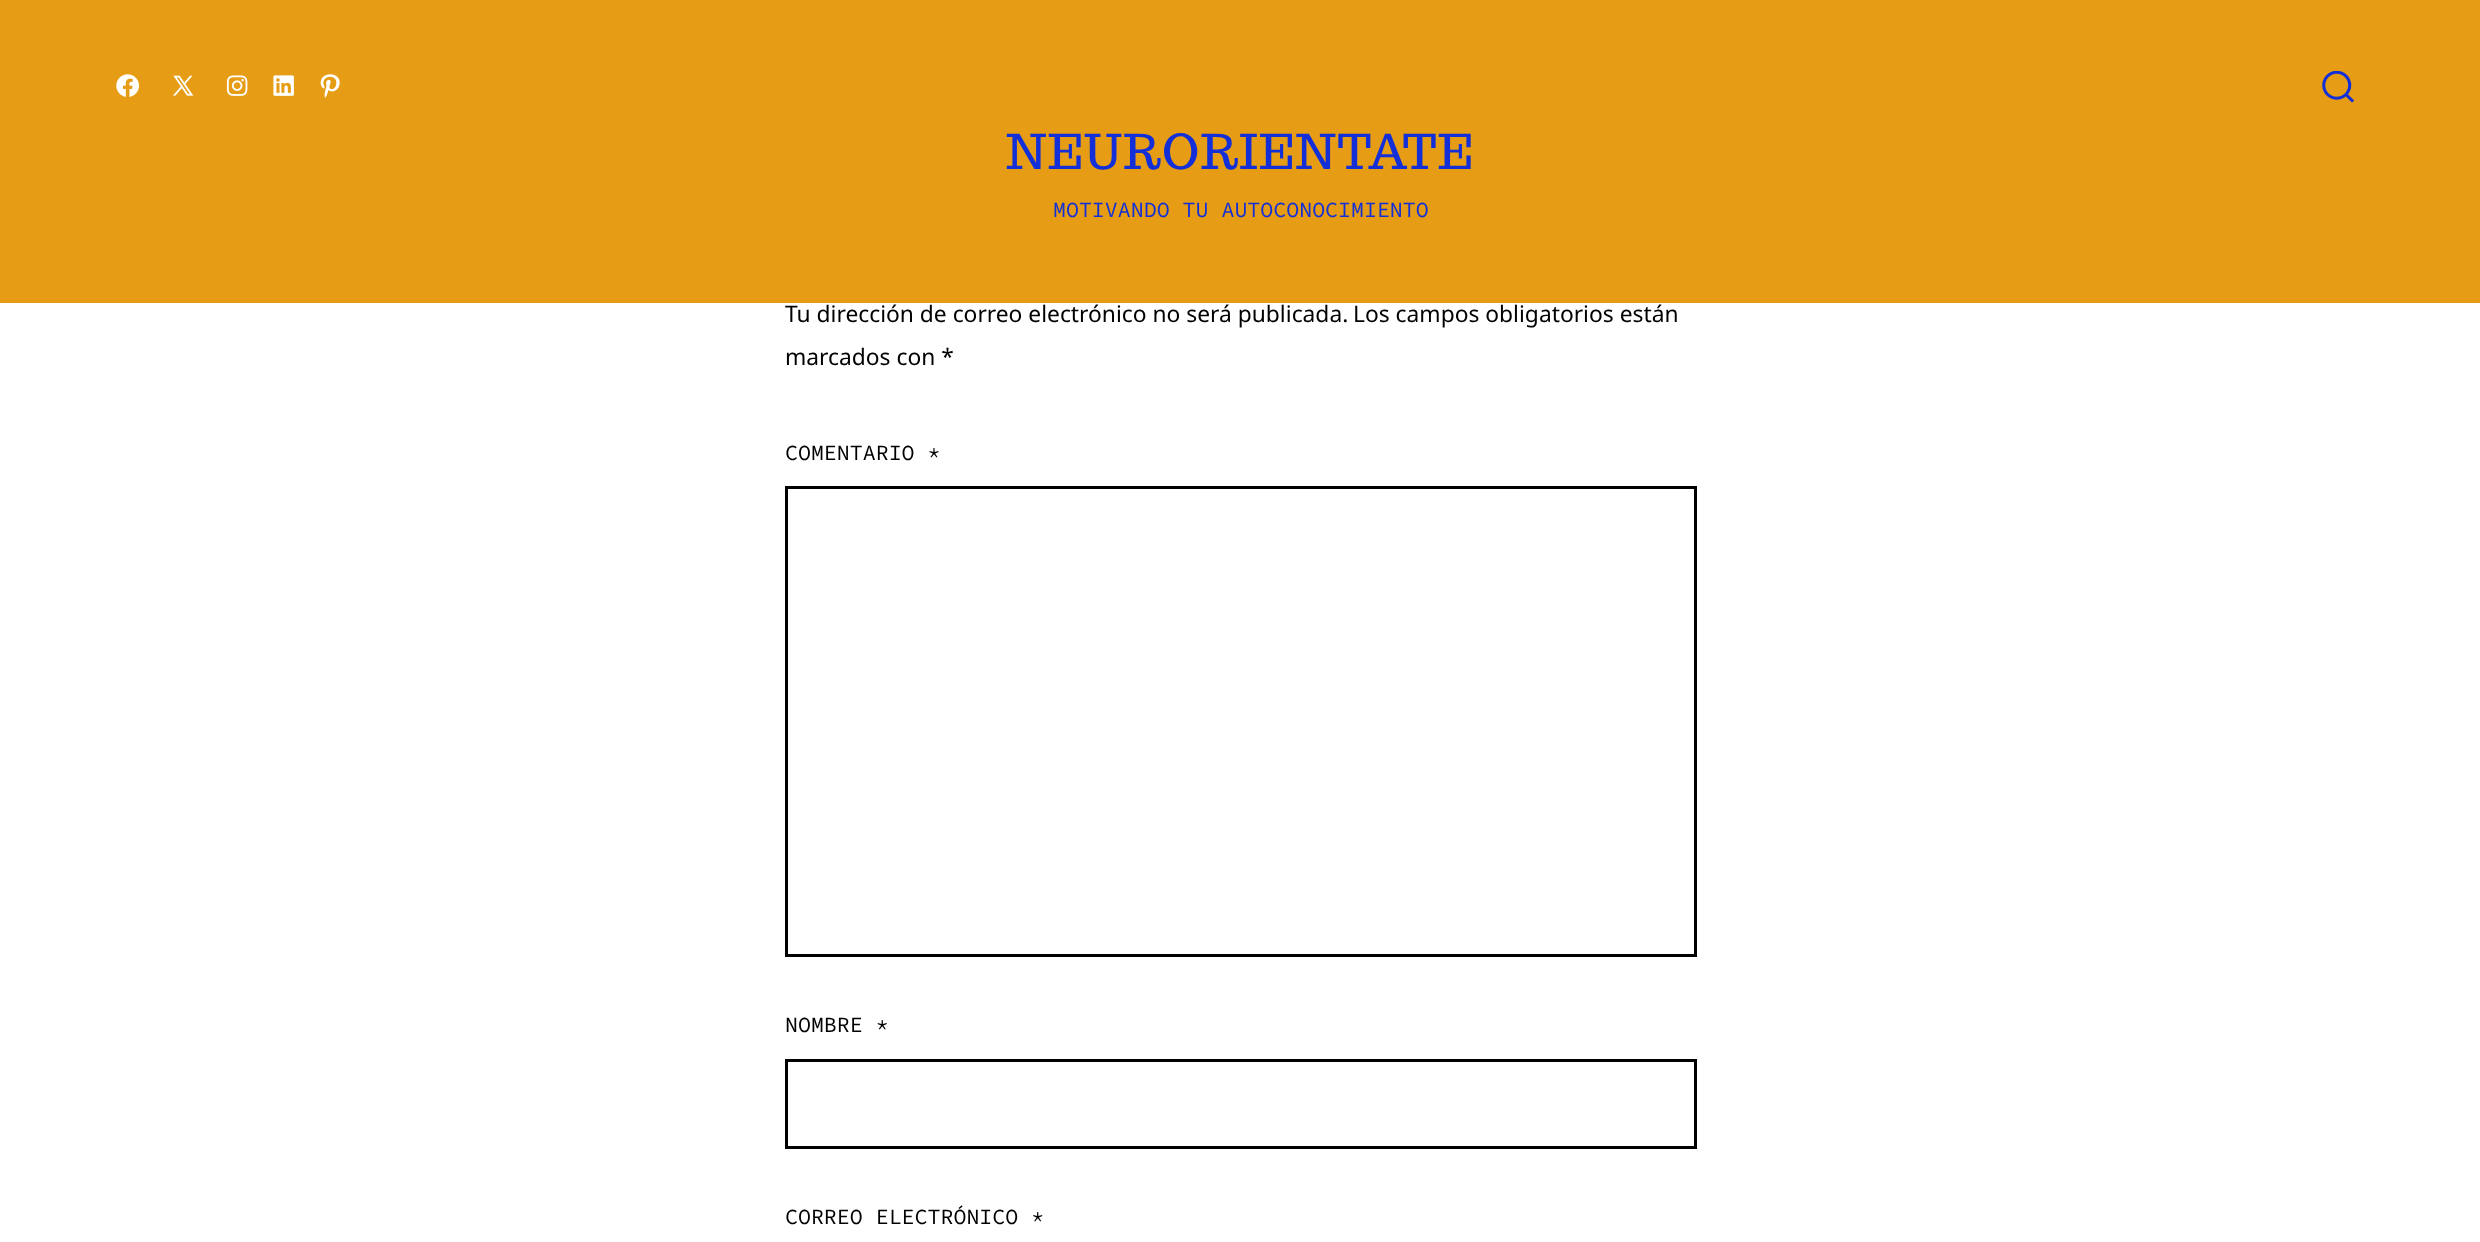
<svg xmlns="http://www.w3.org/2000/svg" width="2480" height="1242">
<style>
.a{font:48px Trocchi;letter-spacing:1.6px;fill:#1330d8}
.b{font:21.6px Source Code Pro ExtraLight;fill:#1330d8}
.c{font:22.8px Noto Sans;fill:#000}
.d{font:21.6px Source Code Pro ExtraLight;fill:#000}
</style>
<rect width="100%" height="100%" fill="#fff"/>
<path fill="#e69c14" d="M0 0h2480v303H0z"/>
<image href="1.png" x="116" y="74" width="23" height="23"/>
<image href="2.png" x="173" y="75" width="21" height="21"/>
<image href="3.png" x="226" y="75" width="22" height="21"/>
<image href="4.png" x="273" y="75" width="21" height="21"/>
<image href="5.png" x="320" y="74" width="20" height="24"/>
<image href="6.png" x="2322" y="71" width="33" height="32"/>
<path fill="none" stroke="#000" stroke-width="3" d="M786.5 487.5h909v468H786.5z"/>
<path fill="none" stroke="#000" stroke-width="3" d="M786.5 1060.5h909v87H786.5z"/>
<text class="a" x="1006" y="169">NEURORIENTATE</text>
<text class="b" x="1053" y="217">MOTIVANDO TU AUTOCONOCIMIENTO</text>
<text class="c" x="785" y="322">Tu dirección de correo electrónico no será publicada.</text>
<text class="c" x="1353" y="322">Los campos obligatorios están</text>
<text class="c" x="785" y="365">marcados con *</text>
<text class="d" x="785" y="460">COMENTARIO *</text>
<text class="d" x="785" y="1032">NOMBRE *</text>
<text class="d" x="785" y="1224">CORREO ELECTRÓNICO *</text>
</svg>
